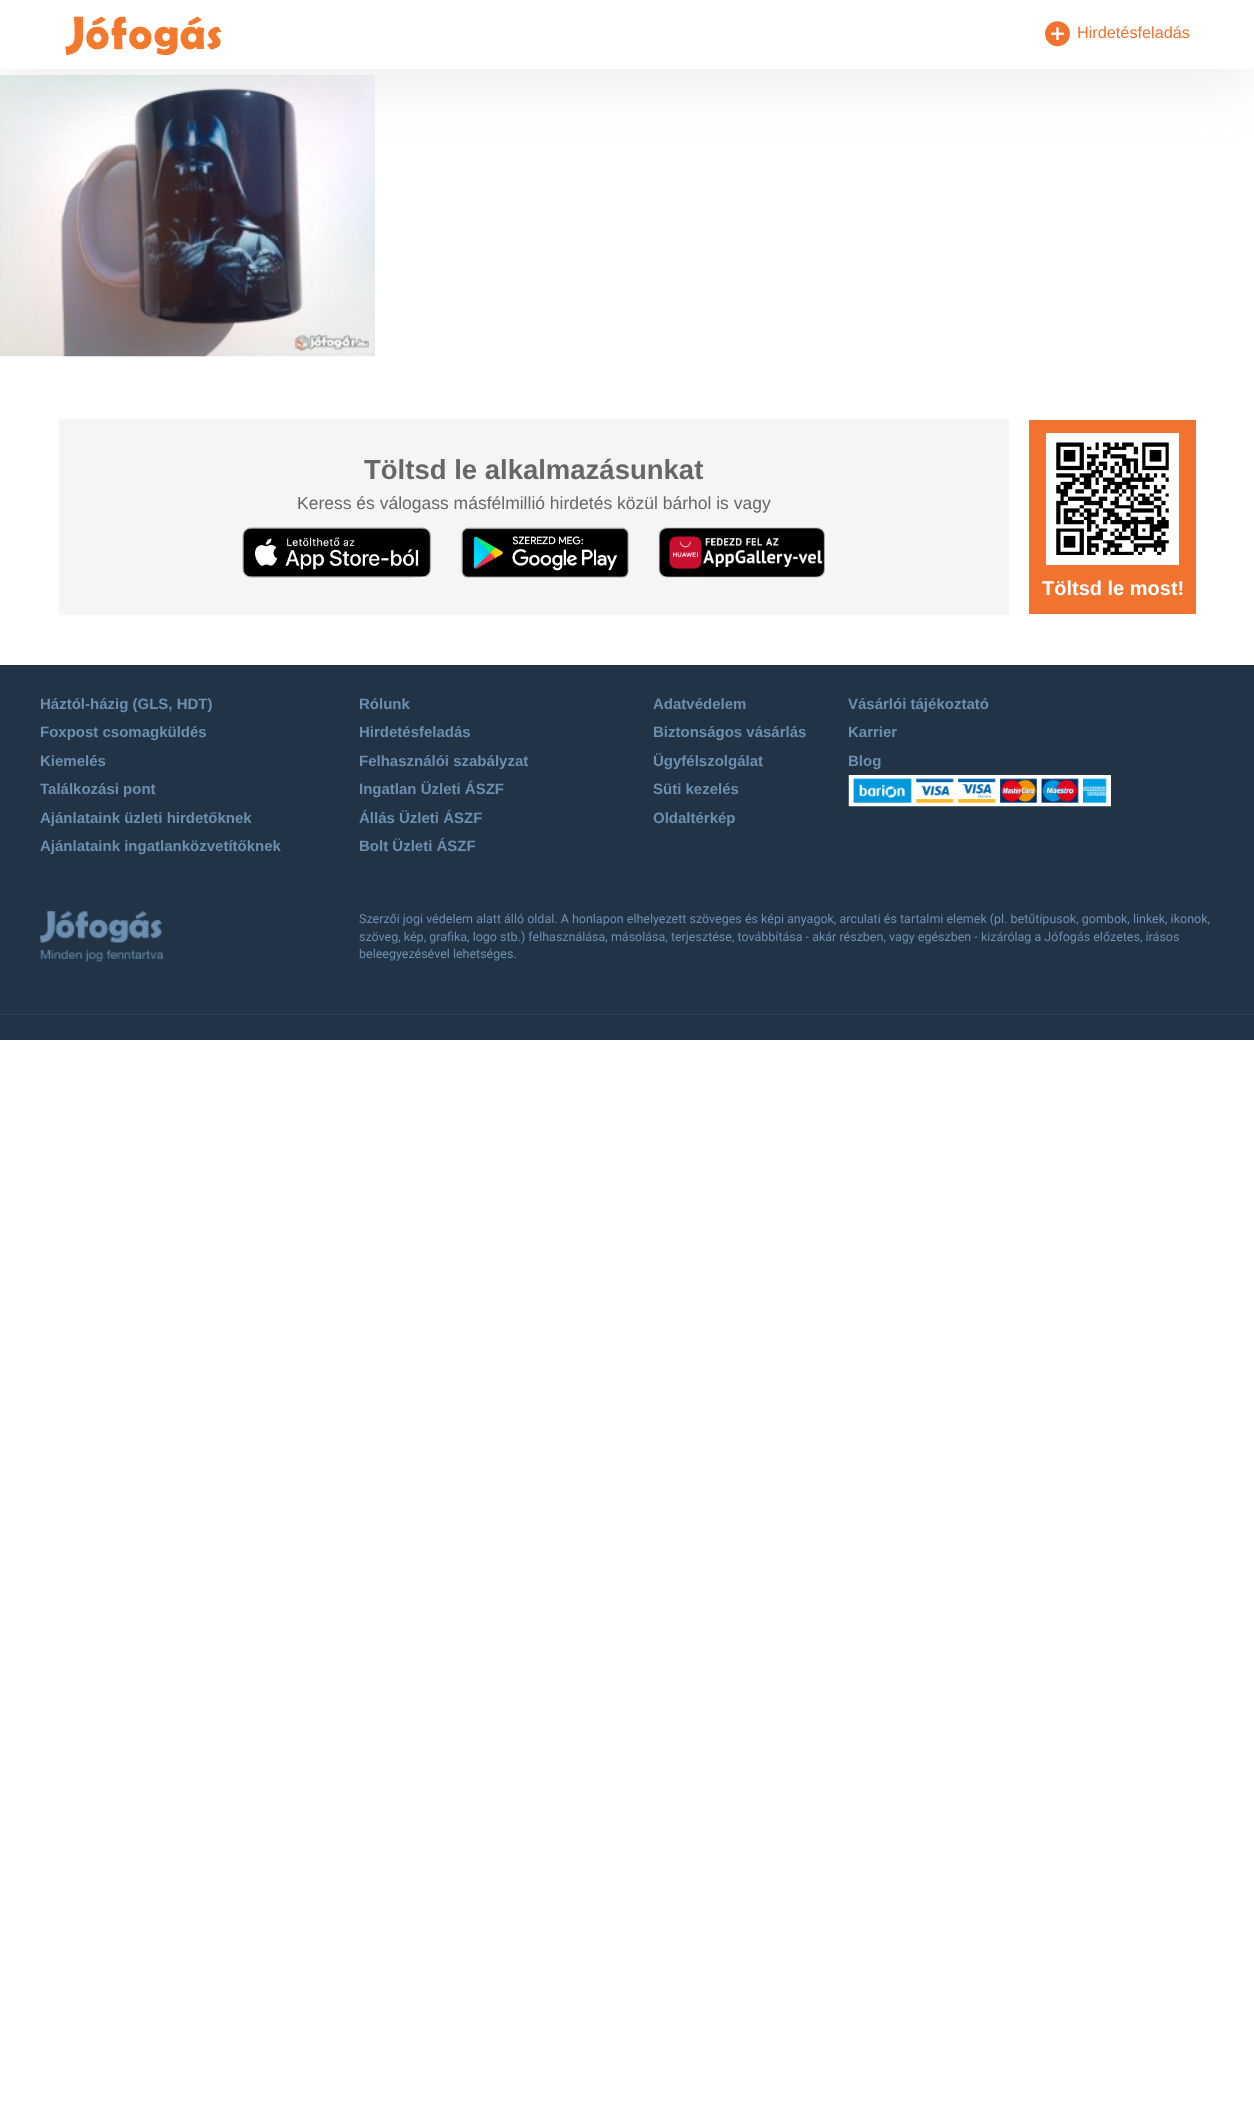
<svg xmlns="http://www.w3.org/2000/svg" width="1254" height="2122">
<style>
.a{font:16.25px Liberation Sans;fill:#f07330}
.b{font:bold 27.5px Liberation Sans;fill:#676767}
.c{font:17.5px Liberation Sans;fill:#676767}
.d{font:bold 20px Liberation Sans;fill:#fff}
.e{font:bold 15px Liberation Sans;fill:#6c8fb1}
.f{font:12.5px Roboto;fill:#6c8fb1}
</style>
<rect width="100%" height="100%" fill="#fff"/>
<image href="3.png" x="0" y="75" width="375" height="282"/>
<path fill="#7a838629" filter="blur(31px)" d="M1 13h1253v66H1z"/>
<path fill="#fff" d="M0 0h1254v69H0z"/>
<image href="1.png" x="65" y="16" width="156" height="39"/>
<image href="2.png" x="1045" y="21" width="25" height="26"/>
<path fill="#f5f5f5" d="M59 419h950v196H59z"/>
<image href="4.png" x="242" y="527" width="190" height="51"/>
<image href="5.png" x="461" y="527" width="168" height="51"/>
<image href="6.png" x="658" y="527" width="167" height="51"/>
<path fill="#f07330" d="M1029 420h167v194H1029z"/>
<path fill="#fff" d="M1046 433h133v132H1046z"/>
<image href="7.png" x="1056" y="442" width="113" height="113"/>
<path fill="#213345" d="M0 665h1254v375H0z"/>
<image href="8.png" x="848" y="775" width="263" height="32"/>
<image href="9.png" x="40" y="911" width="124" height="51"/>
<path fill="#2b4156" d="M0 1014h1254v1H0z"/>
<text class="a" x="1077" y="38">Hirdetésfeladás</text>
<text class="b" x="364" y="479">Töltsd le alkalmazásunkat</text>
<text class="c" x="297" y="509">Keress és válogass másfélmillió hirdetés közül bárhol is vagy</text>
<text class="d" x="1042" y="595">Töltsd le most!</text>
<text class="e" x="40" y="709">Háztól-házig (GLS, HDT)</text>
<text class="e" x="40" y="737">Foxpost csomagküldés</text>
<text class="e" x="40" y="766">Kiemelés</text>
<text class="e" x="40" y="794">Találkozási pont</text>
<text class="e" x="40" y="823">Ajánlataink üzleti hirdetőknek</text>
<text class="e" x="40" y="851">Ajánlataink ingatlanközvetítőknek</text>
<text class="e" x="359" y="709">Rólunk</text>
<text class="e" x="359" y="737">Hirdetésfeladás</text>
<text class="e" x="359" y="766">Felhasználói szabályzat</text>
<text class="e" x="359" y="794">Ingatlan Üzleti ÁSZF</text>
<text class="e" x="359" y="823">Állás Üzleti ÁSZF</text>
<text class="e" x="359" y="851">Bolt Üzleti ÁSZF</text>
<text class="e" x="653" y="709">Adatvédelem</text>
<text class="e" x="653" y="737">Biztonságos vásárlás</text>
<text class="e" x="653" y="766">Ügyfélszolgálat</text>
<text class="e" x="653" y="794">Süti kezelés</text>
<text class="e" x="653" y="823">Oldaltérkép</text>
<text class="e" x="848" y="709">Vásárlói tájékoztató</text>
<text class="e" x="848" y="737">Karrier</text>
<text class="e" x="848" y="766">Blog</text>
<text class="f" x="359" y="923">Szerzői jogi védelem alatt álló oldal. A honlapon elhelyezett szöveges és képi anyagok, arculati és tartalmi elemek (pl. betűtípusok, gombok, linkek, ikonok,</text>
<text class="f" x="359" y="941">szöveg, kép, grafika, logo stb.) felhasználása, másolása, terjesztése, továbbítása - akár részben, vagy egészben - kizárólag a Jófogás előzetes, írásos</text>
<text class="f" x="359" y="958">beleegyezésével lehetséges.</text>
</svg>
